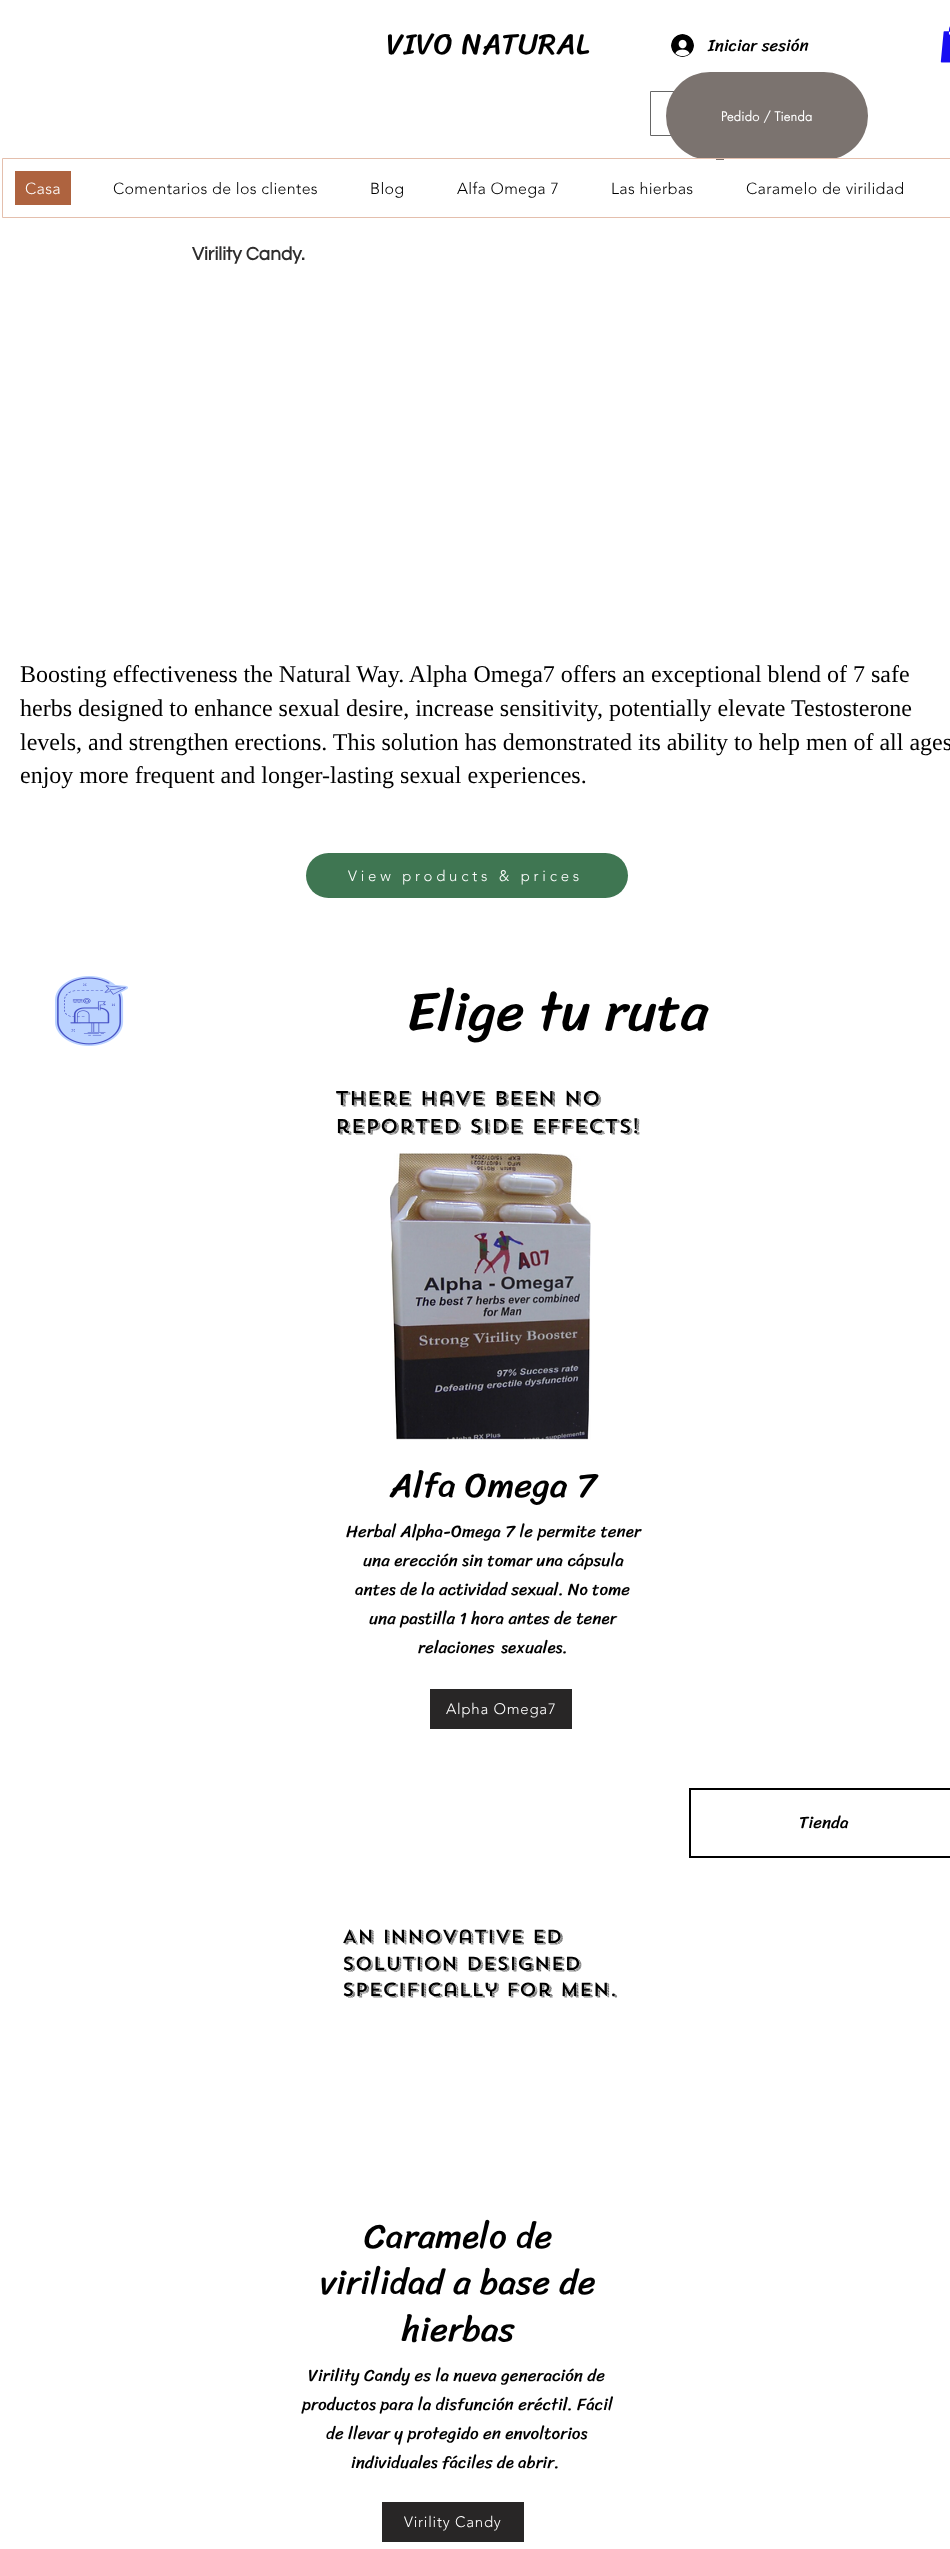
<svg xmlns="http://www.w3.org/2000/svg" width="950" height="2549">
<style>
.a{font:30px Sriracha;fill:#000}
.b{font:17px Sriracha;fill:#000}
.c{font:13px futura;fill:#fff}
.d{font:300 16px 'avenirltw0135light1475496';letter-spacing:0.3px;fill:#fff}
.e{font:300 16px 'avenirltw0135light1475496';letter-spacing:0.3px;fill:#000}
.f{font:bold 19px Questrial;fill:#2f2e2e}
.g{font:24px Liberation Serif;fill:#000}
.h{font:300 15px 'avenirltw0135light1475496';letter-spacing:3.75px;fill:#fff}
.i{font:55px Sriracha;fill:#000}
.j{font:500 20px 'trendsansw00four';fill:#000}
.k{font:35px Sriracha;fill:#000}
.l{font:300 15px 'avenirltw0135light1475496';letter-spacing:0.75px;fill:#fff}
.m{font:500 19px 'trendsansw00four';fill:#000}
</style>
<rect width="100%" height="100%" fill="#fff"/>
<path fill="none" stroke="#666" d="M650.5 91.5h110v44H650.5z"/>
<image href="1.png" x="671" y="34" width="23" height="23"/>
<rect fill="#7b736f" x="666" y="72" width="202" height="88" rx="44"/>
<image href="2.png" x="940" y="26" width="10" height="37"/>
<path fill="none" stroke="#e4bfad" d="M2.5 158.5h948v59H2.5z"/>
<path fill="#ae633f" d="M15 171h56v34H15z"/>
<path fill="#fff" d="M701 159h15v1H701z"/>
<path fill="#fff" d="M724 159h109v1H724z"/>
<rect fill="#3f7652" x="306" y="853" width="322" height="45" rx="22.5"/>
<image href="3.png" x="55" y="976" width="73" height="70"/>
<image href="4.png" x="390" y="1153" width="201" height="287"/>
<path fill="#282626" d="M430 1689h142v40H430z"/>
<path fill="none" stroke="#000" stroke-width="2" d="M690 1789h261v68H690z"/>
<path fill="#282626" d="M382 2502h142v40H382z"/>
<text class="a" x="386" y="54">VIVO NATURAL</text>
<text class="b" x="708" y="51">Iniciar sesión</text>
<text class="c" x="721" y="121">Pedido / Tienda</text>
<text class="d" x="25" y="194">Casa</text>
<text class="e" x="113" y="194">Comentarios de los clientes</text>
<text class="e" x="370" y="194">Blog</text>
<text class="e" x="457" y="194">Alfa Omega 7</text>
<text class="e" x="611" y="194">Las hierbas</text>
<text class="e" x="746" y="194">Caramelo de virilidad</text>
<text class="f" x="192" y="260">Virility Candy.</text>
<text class="g" x="20" y="682">Boosting effectiveness the Natural Way. Alpha Omega7 offers an exceptional blend of 7 safe</text>
<text class="g" x="20" y="716">herbs designed to enhance sexual desire, increase sensitivity, potentially elevate Testosterone</text>
<text class="g" x="20" y="750">levels, and strengthen erections. This solution has demonstrated its ability to help men of all ages</text>
<text class="g" x="20" y="783">enjoy more frequent and longer-lasting sexual experiences.</text>
<text class="h" x="348" y="881">View products &amp; prices</text>
<text class="i" x="407" y="1030">Elige tu ruta</text>
<text class="j" x="335" y="1105">There have been no</text>
<text class="j" x="335" y="1133">reported side effects!</text>
<text class="k" x="390" y="1497">Alfa Omega 7</text>
<text class="b" x="346" y="1537">Herbal Alpha-Omega 7 le permite tener</text>
<text class="b" x="363" y="1566">una erección sin tomar una cápsula</text>
<text class="b" x="355" y="1595" word-spacing="-0.25">antes de la actividad sexual. No tome</text>
<text class="b" x="369" y="1624">una pastilla 1 hora antes de tener</text>
<text class="b" x="418" y="1653" word-spacing="2">relaciones sexuales.</text>
<text class="l" x="446" y="1714">Alpha Omega7</text>
<text class="b" x="799" y="1828">Tienda</text>
<text class="m" x="342" y="1943">An innovative ED</text>
<text class="m" x="342" y="1970">solution designed</text>
<text class="m" x="342" y="1996">specifically for men.</text>
<text class="k" x="364" y="2248">Caramelo de</text>
<text class="k" x="320" y="2294">virilidad a base de</text>
<text class="k" x="402" y="2341">hierbas</text>
<text class="b" x="308" y="2381">Virility Candy es la nueva generación de</text>
<text class="b" x="302" y="2410">productos para la disfunción eréctil. Fácil</text>
<text class="b" x="326" y="2439">de llevar y protegido en envoltorios</text>
<text class="b" x="351" y="2468" word-spacing="-0.25">individuales fáciles de abrir.</text>
<text class="l" x="404" y="2527">Virility Candy</text>
</svg>
